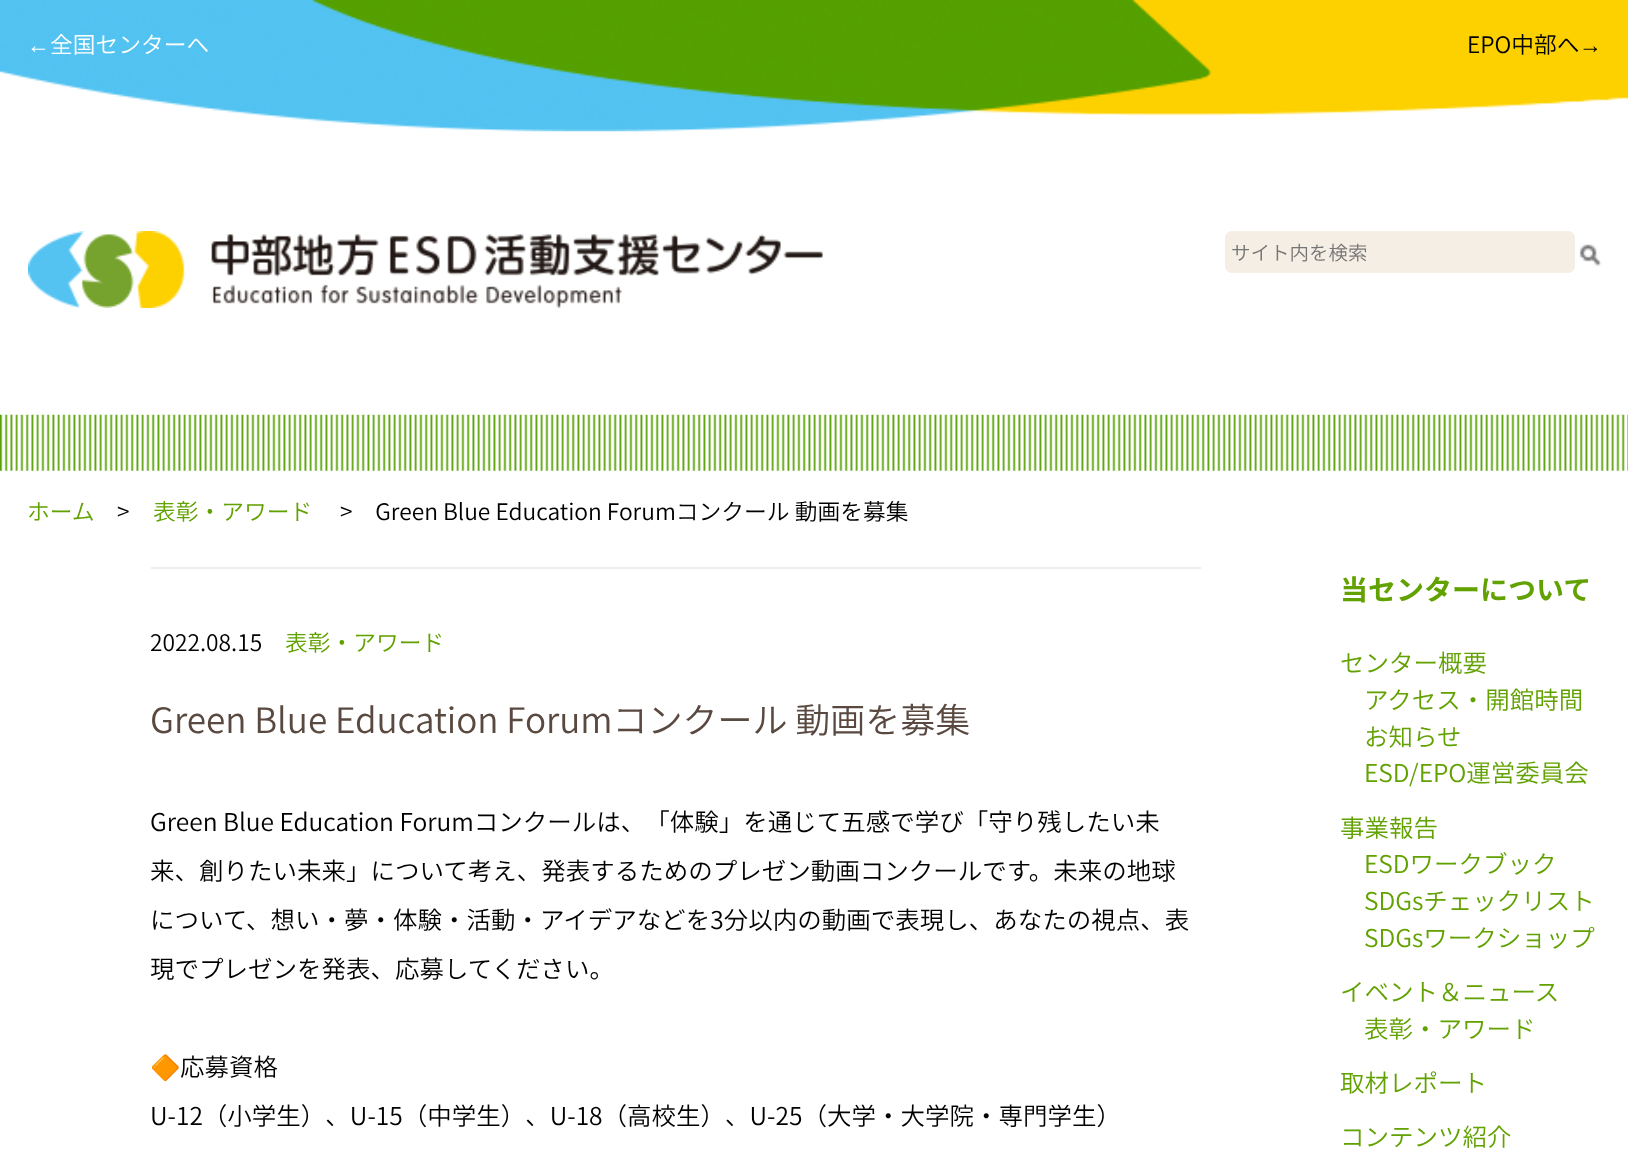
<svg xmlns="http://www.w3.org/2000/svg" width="1628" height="1159">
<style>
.a{font:22.75px Liberation Serif;fill:#fff}
.b{font:300 22.75px Noto Sans JP;fill:#fff}
.c{font:300 22.75px Noto Sans JP;fill:#000}
.d{font:22.75px Liberation Serif;fill:#000}
.e{font:300 19.5px Noto Sans JP;fill:#757575}
.f{font:300 22.75px Noto Sans JP;fill:#61a100}
.g{font:300 35px Noto Sans JP;fill:#594940}
.h{font:300 24.5px Noto Sans JP;fill:#000}
.i{font:24.5px Noto Color Emoji;fill:#000}
.j{font:bold 28px Noto Sans JP;fill:#61a100}
.k{font:300 24.5px Noto Sans JP;fill:#61a100}
</style>
<rect width="100%" height="100%" fill="#fff"/>
<image href="1.png" x="0" y="0" width="1628" height="132"/>
<image href="2.png" x="28" y="231" width="795" height="77"/>
<rect fill="#f5eee4" x="1225" y="231" width="350" height="42" rx="7"/>
<image href="3.png" x="1579" y="244" width="23" height="23"/>
<image href="4.png" x="0" y="414" width="1628" height="57"/>
<path fill="#eee" d="M151 567h1050v2H151z"/>
<text class="a" x="27" y="53">←</text>
<text class="b" x="50" y="53">全国センターへ</text>
<text class="c" x="1467" y="53">EPO中部へ</text>
<text class="d" x="1579" y="53">→</text>
<text class="e" x="1231" y="260">サイト内を検索</text>
<text class="f" x="27" y="520">ホーム</text>
<text class="c" x="117" y="520">&gt;</text>
<text class="f" x="153" y="520">表彰・アワード</text>
<text class="c" x="340" y="520">&gt;　Green Blue Education Forumコンクール 動画を募集</text>
<text class="c" x="150" y="651">2022.08.15</text>
<text class="f" x="285" y="651">表彰・アワード</text>
<text class="g" x="150" y="733">Green Blue Education Forumコンクール 動画を募集</text>
<text class="h" x="150" y="831">Green Blue Education Forumコンクールは、「体験」を通じて五感で学び「守り残したい未</text>
<text class="h" x="150" y="880">来、創りたい未来」について考え、発表するためのプレゼン動画コンクールです。未来の地球</text>
<text class="h" x="150" y="929">について、想い・夢・体験・活動・アイデアなどを3分以内の動画で表現し、あなたの視点、表</text>
<text class="h" x="150" y="978">現でプレゼンを発表、応募してください。</text>
<text class="i" x="150" y="1076">🔶</text>
<text class="h" x="180" y="1076">応募資格</text>
<text class="h" x="150" y="1125">U-12（小学生）、U-15（中学生）、U-18（高校生）、U-25（大学・大学院・専門学生）</text>
<text class="j" x="1340" y="600">当センターについて</text>
<text class="k" x="1340" y="672">センター概要</text>
<text class="k" x="1364" y="709">アクセス・開館時間</text>
<text class="k" x="1364" y="746">お知らせ</text>
<text class="k" x="1364" y="782">ESD/EPO運営委員会</text>
<text class="k" x="1340" y="837">事業報告</text>
<text class="k" x="1364" y="873">ESDワークブック</text>
<text class="k" x="1364" y="910">SDGsチェックリスト</text>
<text class="k" x="1364" y="947">SDGsワークショップ</text>
<text class="k" x="1340" y="1001">イベント＆ニュース</text>
<text class="k" x="1364" y="1038">表彰・アワード</text>
<text class="k" x="1340" y="1092">取材レポート</text>
<text class="k" x="1340" y="1146">コンテンツ紹介</text>
</svg>
